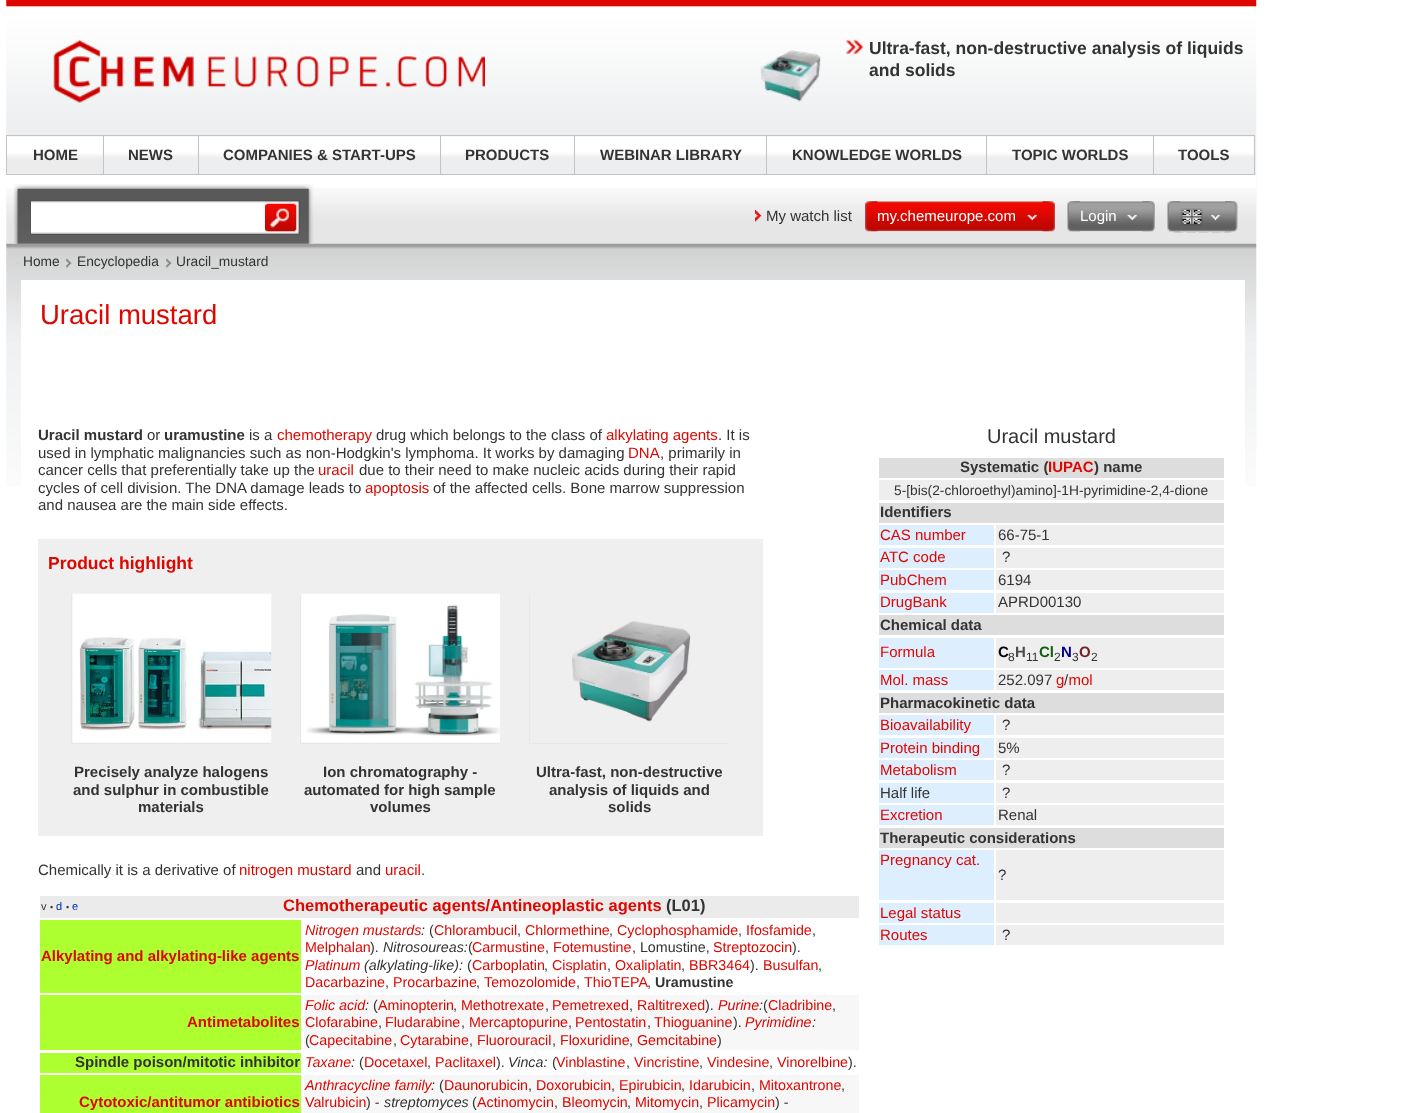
<svg xmlns="http://www.w3.org/2000/svg" width="1424" height="1113">
<style>
.a{font:bold 17.5px Liberation Sans;fill:#333}
.b{font:bold 15px Liberation Sans;fill:#333}
.c{font:15px Liberation Sans;fill:#333}
.d{font:15px Liberation Sans;fill:#fff}
.e{font:13.75px Liberation Sans;fill:#333}
.f{font:27.5px Liberation Sans;fill:#dd0700}
.g{font:15px Liberation Sans;fill:#dd0700}
.h{font:20px Liberation Sans;fill:#333}
.i{font:bold 15px Liberation Sans;fill:#dd0700}
.j{font:bold 15px Liberation Sans;fill:#000}
.k{font:12px Liberation Sans;fill:#333}
.l{font:bold 15px Liberation Sans;fill:#4d4d4d}
.m{font:bold 15px Liberation Sans;fill:#0f5f0f}
.n{font:bold 15px Liberation Sans;fill:#000080}
.o{font:bold 15px Liberation Sans;fill:#742323}
.p{font:bold 17.5px Liberation Sans;fill:#dd0700}
.q{font:11px Liberation Sans;fill:#333}
.r{font:9px Liberation Sans;fill:#333}
.s{font:11px Liberation Sans;fill:#002bb8}
.t{font:bold 16.5px Liberation Sans;fill:#dd0700}
.u{font:bold 16.5px Liberation Sans;fill:#333}
.v{font:italic 14.25px Liberation Sans;fill:#dd0700}
.w{font:italic 14.25px Liberation Sans;fill:#333}
.x{font:14.25px Liberation Sans;fill:#333}
.y{font:14.25px Liberation Sans;fill:#dd0700}
.z{font:bold 14.25px Liberation Sans;fill:#333}
</style>
<defs>
<clipPath id="clip1"><path d="M71 594h200v150H71z"/></clipPath>
<clipPath id="clip2"><path d="M300 594h200v150H300z"/></clipPath>
<clipPath id="clip3"><path d="M529 594h200v150H529z"/></clipPath>
</defs>
<rect width="100%" height="100%" fill="#fff"/>
<image href="1.png" x="6" y="0" width="1251" height="449"/>
<image href="2.png" x="53" y="39" width="432" height="64"/>
<image href="3.png" x="760" y="50" width="61" height="52"/>
<image href="4.png" x="846" y="39" width="18" height="16"/>
<path fill="#c3c3c3" d="M6 135h1249v1H6z"/>
<path fill="#c3c3c3" d="M1254 135h1v40H1254z"/>
<path fill="#c3c3c3" d="M6 174h1249v1H6z"/>
<image href="5.png" x="7" y="136" width="96" height="37"/>
<path fill="#c3c3c3" d="M6 136h1v38H6z"/>
<image href="6.png" x="102" y="136" width="96" height="21"/>
<path fill="#c3c3c3" d="M103 136h1v38H103z"/>
<image href="7.png" x="197" y="136" width="243" height="21"/>
<path fill="#c3c3c3" d="M198 136h1v38H198z"/>
<image href="8.png" x="441" y="136" width="133" height="21"/>
<path fill="#c3c3c3" d="M440 136h1v38H440z"/>
<image href="9.png" x="575" y="136" width="191" height="21"/>
<path fill="#c3c3c3" d="M574 136h1v38H574z"/>
<image href="10.png" x="767" y="136" width="219" height="21"/>
<path fill="#c3c3c3" d="M766 136h1v38H766z"/>
<image href="11.png" x="987" y="136" width="166" height="21"/>
<path fill="#c3c3c3" d="M986 136h1v38H986z"/>
<image href="12.png" x="1152" y="136" width="102" height="21"/>
<path fill="#c3c3c3" d="M1153 136h1v38H1153z"/>
<path fill="#fff" d="M6 175h1250v274H6z"/>
<image href="13.png" x="6" y="188" width="1251" height="298"/>
<image href="14.png" x="13" y="184" width="301" height="60"/>
<image href="15.png" x="31" y="201" width="234" height="33"/>
<path fill="#535252" d="M30 200h235v1H30z"/>
<path fill="#535252" d="M30 234h235v1H30z"/>
<path fill="#535252" d="M30 200h1v35H30z"/>
<image href="16.png" x="265" y="200" width="35" height="35"/>
<image href="17.png" x="755" y="210" width="7" height="12"/>
<image href="18.png" x="865" y="201" width="13" height="31"/>
<image href="19.png" x="1042" y="201" width="13" height="31"/>
<image href="20.png" x="871" y="201" width="178" height="31"/>
<image href="21.png" x="1027" y="214" width="10" height="7"/>
<image href="22.png" x="1067" y="201" width="13" height="31"/>
<image href="23.png" x="1142" y="201" width="13" height="31"/>
<image href="24.png" x="1074" y="201" width="75" height="31"/>
<image href="25.png" x="1127" y="214" width="10" height="7"/>
<image href="26.png" x="1167" y="201" width="13" height="31"/>
<image href="27.png" x="1225" y="201" width="13" height="31"/>
<image href="28.png" x="1173" y="201" width="59" height="32"/>
<image href="29.png" x="1180" y="208" width="23" height="18"/>
<image href="30.png" x="1211" y="214" width="9" height="7"/>
<image href="31.png" x="17" y="262" width="1" height="2"/>
<image href="32.png" x="66" y="258" width="6" height="10"/>
<image href="32.png" x="166" y="258" width="6" height="10"/>
<path fill="#fff" d="M21 280h1224v206H21z"/>
<path fill="#ddd" d="M879 458h345v20H879z"/>
<path fill="#eee" d="M879 480h345v20H879z"/>
<path fill="#ddd" d="M879 503h345v20H879z"/>
<path fill="#def" d="M879 525h115v20H879z"/>
<path fill="#eee" d="M996 525h228v20H996z"/>
<path fill="#def" d="M879 548h115v20H879z"/>
<path fill="#eee" d="M996 548h228v20H996z"/>
<path fill="#def" d="M879 570h115v20H879z"/>
<path fill="#eee" d="M996 570h228v20H996z"/>
<path fill="#def" d="M879 593h115v20H879z"/>
<path fill="#eee" d="M996 593h228v20H996z"/>
<path fill="#ddd" d="M879 615h345v20H879z"/>
<path fill="#def" d="M879 638h115v30H879z"/>
<path fill="#eee" d="M996 638h228v30H996z"/>
<path fill="#def" d="M879 670h115v20H879z"/>
<path fill="#eee" d="M996 670h228v20H996z"/>
<path fill="#ddd" d="M879 693h345v20H879z"/>
<path fill="#def" d="M879 715h115v20H879z"/>
<path fill="#eee" d="M996 715h228v20H996z"/>
<path fill="#def" d="M879 738h115v20H879z"/>
<path fill="#eee" d="M996 738h228v20H996z"/>
<path fill="#def" d="M879 760h115v20H879z"/>
<path fill="#eee" d="M996 760h228v20H996z"/>
<path fill="#def" d="M879 783h115v20H879z"/>
<path fill="#eee" d="M996 783h228v20H996z"/>
<path fill="#def" d="M879 805h115v20H879z"/>
<path fill="#eee" d="M996 805h228v20H996z"/>
<path fill="#ddd" d="M879 828h345v20H879z"/>
<path fill="#def" d="M879 850h115v50H879z"/>
<path fill="#eee" d="M996 850h228v50H996z"/>
<path fill="#def" d="M879 903h115v20H879z"/>
<path fill="#eee" d="M996 903h228v20H996z"/>
<path fill="#def" d="M879 925h115v20H879z"/>
<path fill="#eee" d="M996 925h228v20H996z"/>
<path fill="#efefef" d="M38 539h725v297H38z"/>
<g clip-path="url(#clip1)">
<path fill="none" stroke="#e8e8e8" d="M71.5 591.5h304v152H71.5z"/>
</g>
<image href="33.png" x="72" y="593" width="200" height="150"/>
<g clip-path="url(#clip2)">
<path fill="none" stroke="#e8e8e8" d="M300.5 591.5h214v152H300.5z"/>
</g>
<image href="34.png" x="301" y="593" width="199" height="150"/>
<g clip-path="url(#clip3)">
<path fill="none" stroke="#e8e8e8" d="M529.5 591.5h201v152H529.5z"/>
</g>
<image href="35.png" x="572" y="621" width="119" height="101"/>
<path fill="#ebebeb" d="M40 896h819v22H40z"/>
<path fill="#adff2f" d="M40 920h261v73H40z"/>
<path fill="#adff2f" d="M40 995h261v55H40z"/>
<path fill="#f7f7f7" d="M304 995h555v55H304z"/>
<path fill="#adff2f" d="M40 1053h261v20H40z"/>
<path fill="#adff2f" d="M40 1075h261v38H40z"/>
<path fill="#f7f7f7" d="M304 1075h555v38H304z"/>
<text class="a" x="869" y="54">Ultra-fast, non-destructive analysis of liquids</text>
<text class="a" x="869" y="76">and solids</text>
<text class="b" x="33" y="160">HOME</text>
<text class="b" x="128" y="160">NEWS</text>
<text class="b" x="223" y="160">COMPANIES &amp; START-UPS</text>
<text class="b" x="465" y="160">PRODUCTS</text>
<text class="b" x="600" y="160">WEBINAR LIBRARY</text>
<text class="b" x="792" y="160">KNOWLEDGE WORLDS</text>
<text class="b" x="1012" y="160">TOPIC WORLDS</text>
<text class="b" x="1178" y="160">TOOLS</text>
<text class="c" x="766" y="221">My watch list</text>
<text class="d" x="877" y="221">my.chemeurope.com</text>
<text class="d" x="1080" y="221">Login</text>
<text class="e" x="23" y="266">Home</text>
<text class="e" x="77" y="266">Encyclopedia</text>
<text class="e" x="176" y="266">Uracil_mustard</text>
<text class="f" x="40" y="324">Uracil mustard</text>
<text class="b" x="38" y="440">Uracil mustard</text>
<text class="c" x="147" y="440">or</text>
<text class="b" x="164" y="440">uramustine</text>
<text class="c" x="249" y="440">is a</text>
<text class="g" x="277" y="440">chemotherapy</text>
<text class="c" x="376" y="440">drug which belongs to the class of</text>
<text class="g" x="606" y="440">alkylating agents</text>
<text class="c" x="718" y="440">. It is</text>
<text class="c" x="38" y="458">used in lymphatic malignancies such as non-Hodgkin's lymphoma. It works by damaging</text>
<text class="g" x="628" y="458">DNA</text>
<text class="c" x="660" y="458">, primarily in</text>
<text class="c" x="38" y="475">cancer cells that preferentially take up the</text>
<text class="g" x="318" y="475">uracil</text>
<text class="c" x="359" y="475">due to their need to make nucleic acids during their rapid</text>
<text class="c" x="38" y="493">cycles of cell division. The DNA damage leads to</text>
<text class="g" x="365" y="493">apoptosis</text>
<text class="c" x="433" y="493">of the affected cells. Bone marrow suppression</text>
<text class="c" x="38" y="510">and nausea are the main side effects.</text>
<text class="h" x="987" y="443">Uracil mustard</text>
<text class="b" x="960" y="472">Systematic (</text>
<text class="i" x="1048" y="472">IUPAC</text>
<text class="b" x="1094" y="472">) name</text>
<text class="e" x="894" y="495">5-[bis(2-chloroethyl)amino]-1H-pyrimidine-2,4-dione</text>
<text class="b" x="880" y="517">Identifiers</text>
<text class="g" x="880" y="540">CAS number</text>
<text class="c" x="998" y="540">66-75-1</text>
<text class="g" x="880" y="562">ATC code</text>
<text class="c" x="1002" y="562">?</text>
<text class="g" x="880" y="585">PubChem</text>
<text class="c" x="998" y="585">6194</text>
<text class="g" x="880" y="607">DrugBank</text>
<text class="c" x="998" y="607">APRD00130</text>
<text class="b" x="880" y="630">Chemical data</text>
<text class="g" x="880" y="657">Formula</text>
<text class="j" x="998" y="657">C</text>
<text class="k" x="1008" y="661">8</text>
<text class="l" x="1015" y="657">H</text>
<text class="k" x="1026" y="661">11</text>
<text class="m" x="1039" y="657">Cl</text>
<text class="k" x="1054" y="661">2</text>
<text class="n" x="1061" y="657">N</text>
<text class="k" x="1072" y="661">3</text>
<text class="o" x="1079" y="657">O</text>
<text class="k" x="1091" y="661">2</text>
<text class="g" x="880" y="685">Mol. mass</text>
<text class="c" x="998" y="685">252.097</text>
<text class="g" x="1056" y="685">g mol</text>
<text class="c" x="1064" y="685">/</text>
<text class="b" x="880" y="708">Pharmacokinetic data</text>
<text class="g" x="880" y="730">Bioavailability</text>
<text class="c" x="1002" y="730">?</text>
<text class="g" x="880" y="753">Protein binding</text>
<text class="c" x="998" y="753">5%</text>
<text class="g" x="880" y="775">Metabolism</text>
<text class="c" x="1002" y="775">?</text>
<text class="c" x="880" y="798">Half life</text>
<text class="c" x="1002" y="798">?</text>
<text class="g" x="880" y="820">Excretion</text>
<text class="c" x="998" y="820">Renal</text>
<text class="b" x="880" y="843">Therapeutic considerations</text>
<text class="g" x="880" y="865">Pregnancy cat.</text>
<text class="c" x="998" y="880">?</text>
<text class="g" x="880" y="918">Legal status</text>
<text class="g" x="880" y="940">Routes</text>
<text class="c" x="1002" y="940">?</text>
<text class="p" x="48" y="569">Product highlight</text>
<text class="b" x="74" y="777">Precisely analyze halogens</text>
<text class="b" x="73" y="795">and sulphur in combustible</text>
<text class="b" x="138" y="812">materials</text>
<text class="b" x="323" y="777">Ion chromatography -</text>
<text class="b" x="304" y="795">automated for high sample</text>
<text class="b" x="370" y="812">volumes</text>
<text class="b" x="536" y="777">Ultra-fast, non-destructive</text>
<text class="b" x="549" y="795">analysis of liquids and</text>
<text class="b" x="608" y="812">solids</text>
<text class="c" x="38" y="875">Chemically it is a derivative of</text>
<text class="g" x="239" y="875">nitrogen mustard</text>
<text class="c" x="356" y="875">and</text>
<text class="g" x="385" y="875">uracil</text>
<text class="c" x="421" y="875">.</text>
<text class="q" x="41" y="910">v</text>
<text class="r" x="50" y="910">•</text>
<text class="s" x="56" y="910">d</text>
<text class="r" x="66" y="910">•</text>
<text class="s" x="72" y="910">e</text>
<text class="t" x="283" y="911">Chemotherapeutic agents/Antineoplastic agents</text>
<text class="u" x="666" y="911">(L01)</text>
<text class="i" x="41" y="961">Alkylating and alkylating-like agents</text>
<text class="v" x="305" y="935">Nitrogen mustards</text>
<text class="w" x="421" y="935">:</text>
<text class="x" x="429" y="935">(</text>
<text class="y" x="434" y="935">Chlorambucil</text>
<text class="x" x="517" y="935">,</text>
<text class="y" x="525" y="935">Chlormethine</text>
<text class="x" x="609" y="935">,</text>
<text class="y" x="617" y="935">Cyclophosphamide</text>
<text class="x" x="738" y="935">,</text>
<text class="y" x="746" y="935">Ifosfamide</text>
<text class="x" x="812" y="935">,</text>
<text class="y" x="305" y="952">Melphalan</text>
<text class="x" x="370" y="952">).</text>
<text class="w" x="383" y="952">Nitrosoureas:</text>
<text class="x" x="468" y="952">(</text>
<text class="y" x="472" y="952">Carmustine</text>
<text class="x" x="545" y="952">,</text>
<text class="y" x="553" y="952">Fotemustine</text>
<text class="x" x="632" y="952">, Lomustine,</text>
<text class="y" x="713" y="952">Streptozocin</text>
<text class="x" x="792" y="952">).</text>
<text class="v" x="305" y="970">Platinum</text>
<text class="w" x="364" y="970">(alkylating-like):</text>
<text class="x" x="467" y="970">(</text>
<text class="y" x="472" y="970">Carboplatin</text>
<text class="x" x="544" y="970">,</text>
<text class="y" x="552" y="970">Cisplatin</text>
<text class="x" x="607" y="970">,</text>
<text class="y" x="615" y="970">Oxaliplatin</text>
<text class="x" x="681" y="970">,</text>
<text class="y" x="689" y="970">BBR3464</text>
<text class="x" x="750" y="970">).</text>
<text class="y" x="763" y="970">Busulfan</text>
<text class="x" x="818" y="970">,</text>
<text class="y" x="305" y="987">Dacarbazine</text>
<text class="x" x="385" y="987">,</text>
<text class="y" x="393" y="987">Procarbazine</text>
<text class="x" x="476" y="987">,</text>
<text class="y" x="484" y="987">Temozolomide</text>
<text class="x" x="576" y="987">,</text>
<text class="y" x="584" y="987">ThioTEPA</text>
<text class="x" x="647" y="987">,</text>
<text class="z" x="655" y="987">Uramustine</text>
<text class="i" x="187" y="1027">Antimetabolites</text>
<text class="v" x="305" y="1010">Folic acid</text>
<text class="w" x="365" y="1010">:</text>
<text class="x" x="373" y="1010">(</text>
<text class="y" x="378" y="1010">Aminopterin</text>
<text class="x" x="453" y="1010">,</text>
<text class="y" x="461" y="1010">Methotrexate</text>
<text class="x" x="545" y="1010">,</text>
<text class="y" x="552" y="1010">Pemetrexed</text>
<text class="x" x="629" y="1010">,</text>
<text class="y" x="637" y="1010">Raltitrexed</text>
<text class="x" x="705" y="1010">).</text>
<text class="v" x="718" y="1010">Purine</text>
<text class="w" x="759" y="1010">:</text>
<text class="x" x="763" y="1010">(</text>
<text class="y" x="768" y="1010">Cladribine</text>
<text class="x" x="832" y="1010">,</text>
<text class="y" x="305" y="1027">Clofarabine</text>
<text class="x" x="378" y="1027">,</text>
<text class="y" x="385" y="1027">Fludarabine</text>
<text class="x" x="461" y="1027">,</text>
<text class="y" x="469" y="1027">Mercaptopurine</text>
<text class="x" x="568" y="1027">,</text>
<text class="y" x="575" y="1027">Pentostatin</text>
<text class="x" x="647" y="1027">,</text>
<text class="y" x="654" y="1027">Thioguanine</text>
<text class="x" x="733" y="1027">).</text>
<text class="v" x="745" y="1027">Pyrimidine</text>
<text class="w" x="812" y="1027">:</text>
<text class="x" x="305" y="1045">(</text>
<text class="y" x="309" y="1045">Capecitabine</text>
<text class="x" x="393" y="1045">,</text>
<text class="y" x="400" y="1045">Cytarabine</text>
<text class="x" x="469" y="1045">,</text>
<text class="y" x="477" y="1045">Fluorouracil</text>
<text class="x" x="552" y="1045">,</text>
<text class="y" x="560" y="1045">Floxuridine</text>
<text class="x" x="629" y="1045">,</text>
<text class="y" x="637" y="1045">Gemcitabine</text>
<text class="x" x="717" y="1045">)</text>
<text class="b" x="75" y="1067">Spindle poison/mitotic inhibitor</text>
<text class="v" x="305" y="1067">Taxane</text>
<text class="w" x="351" y="1067">:</text>
<text class="x" x="359" y="1067">(</text>
<text class="y" x="364" y="1067">Docetaxel</text>
<text class="x" x="427" y="1067">,</text>
<text class="y" x="435" y="1067">Paclitaxel</text>
<text class="x" x="496" y="1067">).</text>
<text class="w" x="508" y="1067">Vinca:</text>
<text class="x" x="552" y="1067">(</text>
<text class="y" x="556" y="1067">Vinblastine</text>
<text class="x" x="626" y="1067">,</text>
<text class="y" x="634" y="1067">Vincristine</text>
<text class="x" x="699" y="1067">,</text>
<text class="y" x="707" y="1067">Vindesine</text>
<text class="x" x="769" y="1067">,</text>
<text class="y" x="777" y="1067">Vinorelbine</text>
<text class="x" x="848" y="1067">).</text>
<text class="i" x="79" y="1107">Cytotoxic/antitumor antibiotics</text>
<text class="v" x="305" y="1090">Anthracycline family</text>
<text class="x" x="439" y="1090">(</text>
<text class="y" x="444" y="1090">Daunorubicin</text>
<text class="y" x="536" y="1090">Doxorubicin</text>
<text class="y" x="619" y="1090">Epirubicin</text>
<text class="y" x="689" y="1090">Idarubicin</text>
<text class="y" x="759" y="1090">Mitoxantrone</text>
<text class="w" x="431" y="1090">:</text>
<text class="x" x="528" y="1090">,</text>
<text class="x" x="611" y="1090">,</text>
<text class="x" x="681" y="1090">,</text>
<text class="x" x="751" y="1090">,</text>
<text class="x" x="841" y="1090">,</text>
<text class="y" x="305" y="1107">Valrubicin</text>
<text class="x" x="366" y="1107">) -</text>
<text class="w" x="384" y="1107">streptomyces</text>
<text class="x" x="472" y="1107">(</text>
<text class="y" x="477" y="1107">Actinomycin</text>
<text class="x" x="554" y="1107">,</text>
<text class="y" x="562" y="1107">Bleomycin</text>
<text class="x" x="627" y="1107">,</text>
<text class="y" x="635" y="1107">Mitomycin</text>
<text class="x" x="699" y="1107">,</text>
<text class="y" x="707" y="1107">Plicamycin</text>
<text class="x" x="775" y="1107">) -</text>
</svg>
